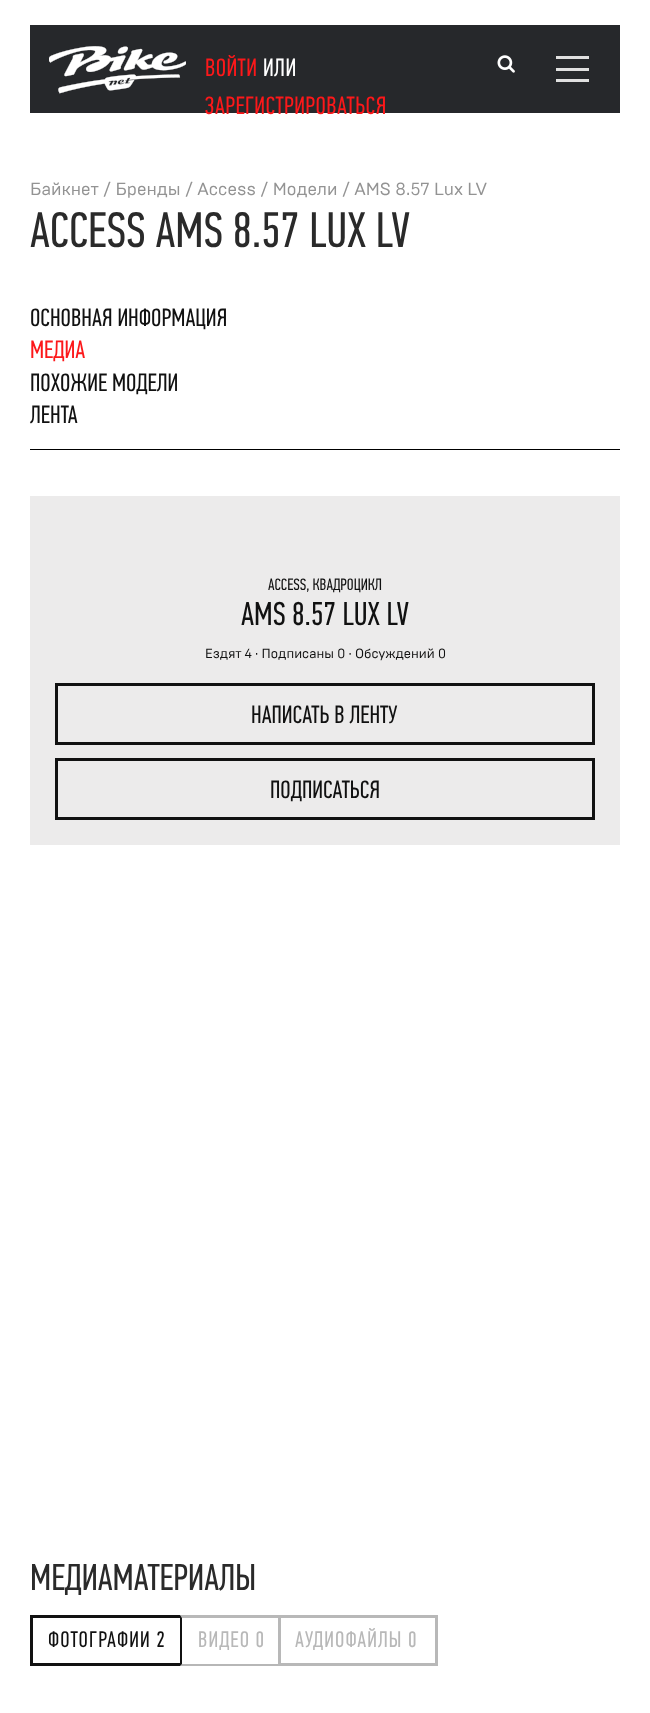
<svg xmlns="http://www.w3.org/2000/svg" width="650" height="1713">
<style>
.a{font:25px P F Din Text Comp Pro;letter-spacing:0.4px;fill:#fc181a}
.b{font:25px P F Din Text Comp Pro;letter-spacing:0.4px;fill:#fff}
.c{font:17.5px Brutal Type;fill:#939393}
.d{font:50px P F Din Text Comp Pro;fill:#2a2a2a}
.e{font:25px P F Din Text Comp Pro;fill:#111}
.f{font:25px P F Din Text Comp Pro;fill:#fc181a}
.g{font:16.5px P F Din Text Comp Pro;fill:#111}
.h{font:33px P F Din Text Comp Pro;fill:#111}
.i{font:13.25px Brutal Type;fill:#111}
.j{font:37.5px P F Din Text Comp Pro;fill:#2a2a2a}
.k{font:22.5px P F Din Text Comp Pro;letter-spacing:1.1px;fill:#111}
.l{font:22.5px P F Din Text Comp Pro;letter-spacing:1.1px;fill:#b8b8b8}
</style>
<rect width="100%" height="100%" fill="#fff"/>
<path fill="#26282b" d="M30 25h590v88H30z"/>
<image href="1.png" x="49" y="46" width="137" height="48"/>
<image href="2.png" x="497" y="55" width="18" height="18"/>
<path fill="#e0e0e0" d="M556 56h33v3H556z"/>
<path fill="#e0e0e0" d="M556 68h33v3H556z"/>
<path fill="#e0e0e0" d="M556 79h33v3H556z"/>
<path fill="#000" d="M30 449h590v1H30z"/>
<path fill="#ecebeb" d="M30 496h590v349H30z"/>
<path fill="none" stroke="#111" stroke-width="3" d="M56.5 684.5h537v59H56.5z"/>
<path fill="none" stroke="#111" stroke-width="3" d="M56.5 759.5h537v59H56.5z"/>
<path fill="none" stroke="#111" stroke-width="3" d="M31.5 1616.5h152v48H31.5z"/>
<path fill="#fff" d="M180 1615h5v51H180z"/>
<path fill="#b8b8b8" d="M180 1615h102l-2 3h-98z"/>
<path fill="#1111114d" d="M282 1666h-102l2-2h98z"/>
<path fill="#111" d="M180 1666v-51l2 3v46z"/>
<path fill="none" stroke="#b8b8b8" stroke-width="3" d="M279.5 1616.5h157v48H279.5z"/>
<text class="a" x="205" y="76">ВОЙТИ</text>
<text class="b" x="263" y="76">ИЛИ</text>
<text class="a" x="205" y="114">ЗАРЕГИСТРИРОВАТЬСЯ</text>
<text class="c" x="30" y="195">Байкнет</text>
<text class="c" x="103" y="195">/ Бренды / Access / Модели / AMS 8.57 Lux LV</text>
<text class="d" x="30" y="247">ACCESS AMS 8.57 LUX LV</text>
<text class="e" x="30" y="326">ОСНОВНАЯ ИНФОРМАЦИЯ</text>
<text class="f" x="30" y="358">МЕДИА</text>
<text class="e" x="30" y="391">ПОХОЖИЕ МОДЕЛИ</text>
<text class="e" x="30" y="423">ЛЕНТА</text>
<text class="g" x="268" y="590">ACCESS, КВАДРОЦИКЛ</text>
<text class="h" x="241" y="625">AMS 8.57 LUX LV</text>
<text class="i" x="205" y="658">Ездят 4 · Подписаны 0 · Обсуждений 0</text>
<text class="e" x="251" y="723">НАПИСАТЬ В ЛЕНТУ</text>
<text class="e" x="270" y="798">ПОДПИСАТЬСЯ</text>
<text class="j" x="30" y="1590">МЕДИАМАТЕРИАЛЫ</text>
<text class="k" x="48" y="1647">ФОТОГРАФИИ 2</text>
<text class="l" x="198" y="1647">ВИДЕО 0</text>
<text class="l" x="295" y="1647">АУДИОФАЙЛЫ 0</text>
</svg>
